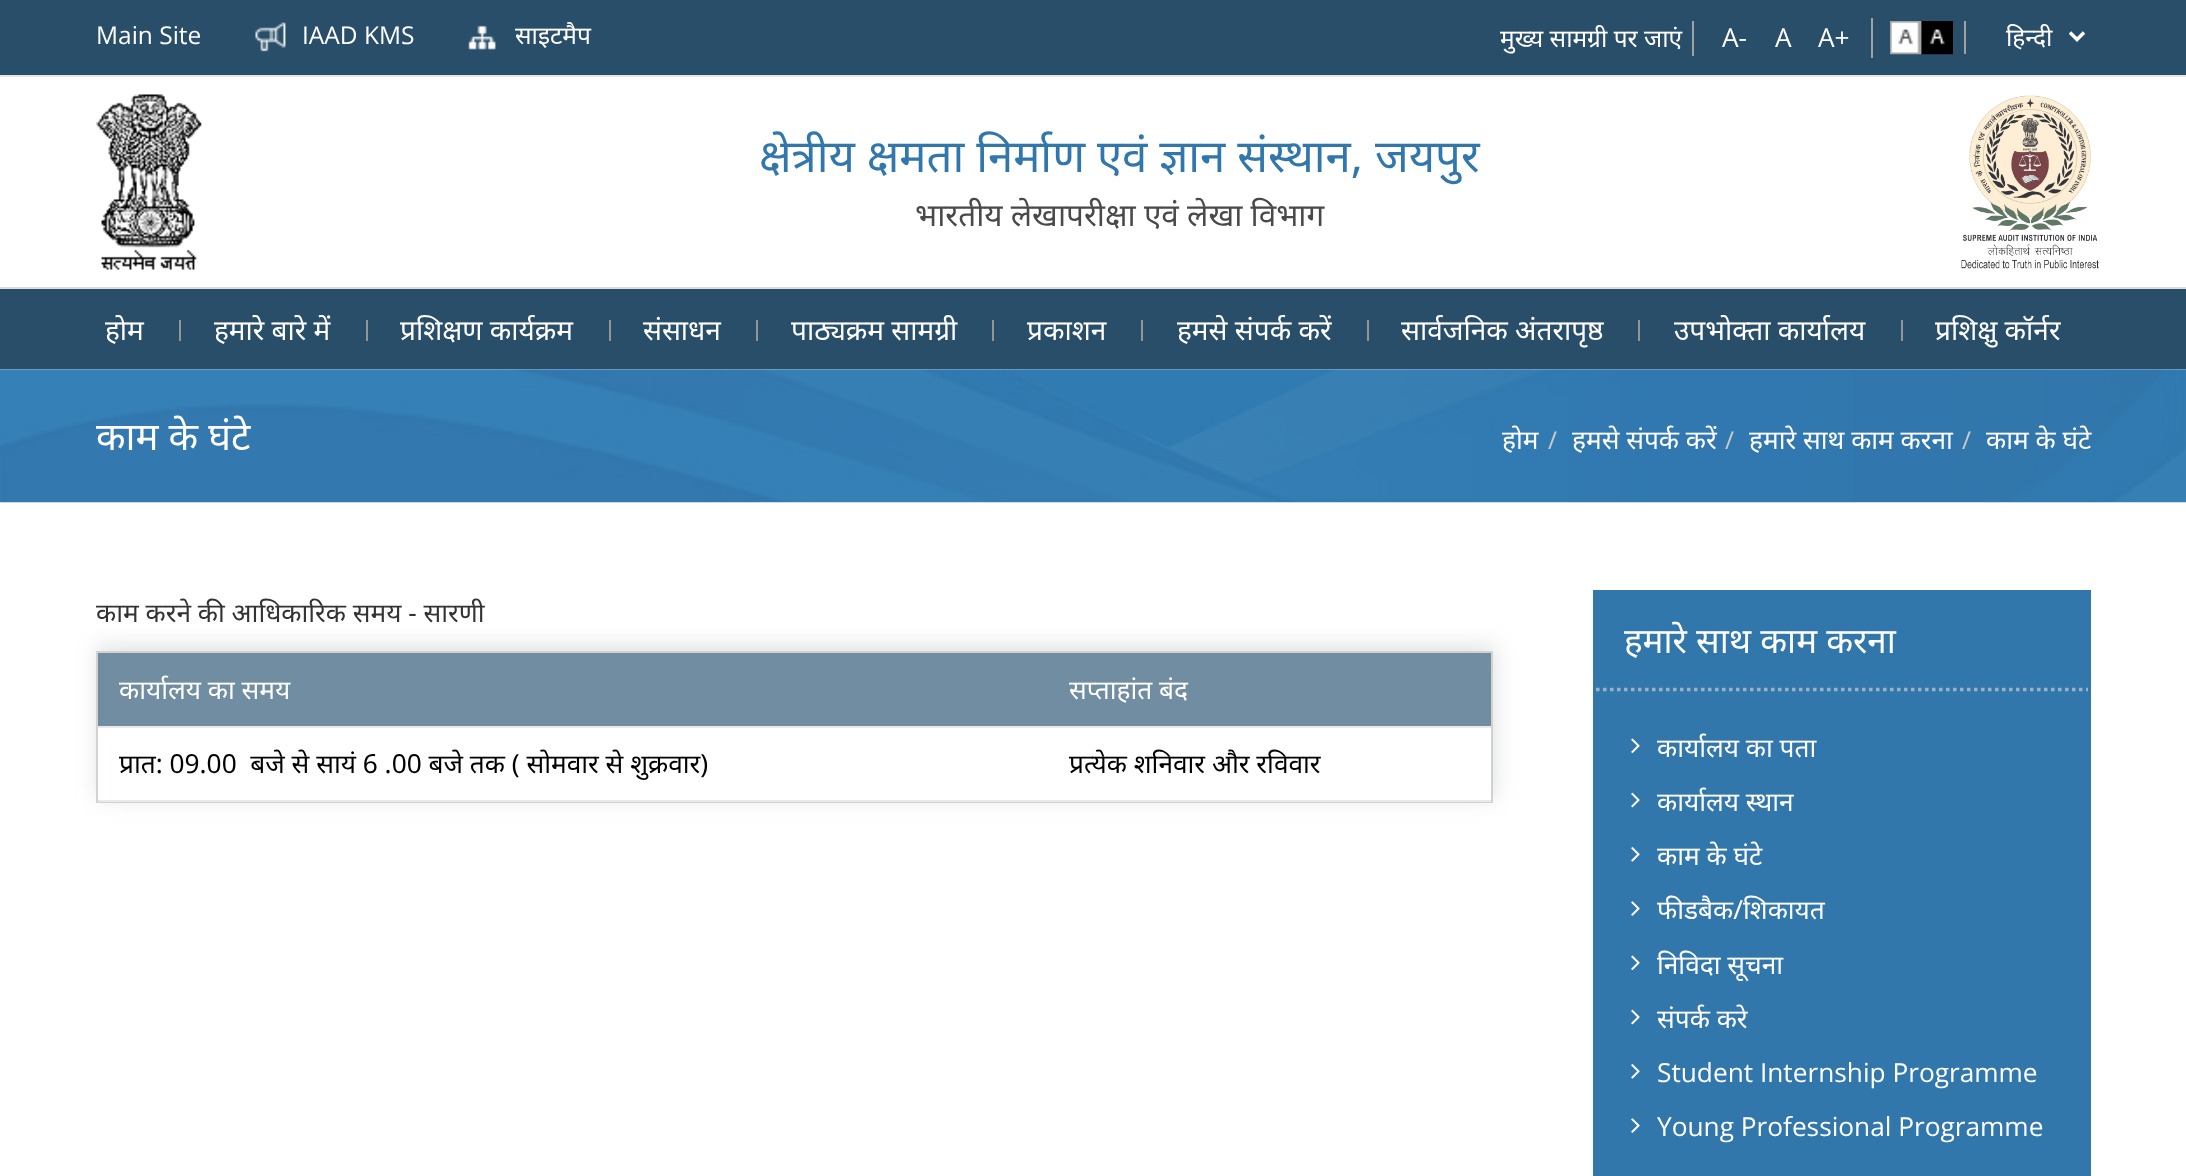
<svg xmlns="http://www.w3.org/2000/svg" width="2186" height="1176">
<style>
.a{font:24.5px Open Sans;fill:#fff}
.b{font:24.5px Noto Sans;fill:#fff}
.c{font:26.25px Open Sans;fill:#fff}
.d{font:45.5px Noto Sans;fill:#3177ab}
.e{font:31.5px Noto Sans;fill:#494949}
.f{font:28px Noto Sans;fill:#fff}
.g{font:38.5px Noto Sans;fill:#fff}
.h{font:26.25px Noto Sans;fill:#fff}
.i{font:24.5px Open Sans;fill:#ccc}
.j{font:26.25px Noto Sans;fill:#333}
.k{font:26.25px Noto Sans;fill:#000}
.l{font:35px Noto Sans;fill:#fff}
</style>
<defs>
<clipPath id="clip1"><path d="M2006 18h57v36H2006z"/></clipPath>
</defs>
<rect width="100%" height="100%" fill="#fff"/>
<path fill="#294e69" d="M0 0h2186v75H0z"/>
<path fill="#e4e4e4" d="M0 75h2186v2H0z"/>
<image href="1.png" x="255" y="22" width="31" height="30"/>
<image href="2.png" x="468" y="25" width="28" height="25"/>
<path fill="#a1a1a1" d="M1692 21h2v35H1692z"/>
<path fill="#a1a1a1" d="M1871 18h2v40H1871z"/>
<path fill="#a1a1a1" d="M1964 21h2v33H1964z"/>
<image href="3.png" x="1890" y="21" width="32" height="34"/>
<image href="4.png" x="1921" y="21" width="32" height="34"/>
<path fill="none" stroke="#fff" stroke-width="3.5" d="M2070 32.5l7 7l7-7"/>
<path fill="#ddd" d="M0 287h2186v2H0z"/>
<image href="5.png" x="96" y="94" width="106" height="176"/>
<image href="6.png" x="1961" y="95" width="138" height="174"/>
<path fill="#294e69" d="M0 289h2186v80H0z"/>
<path fill="#959595" d="M179 320h2v21H179z"/>
<path fill="#959595" d="M366 320h2v21H366z"/>
<path fill="#959595" d="M609 320h2v21H609z"/>
<path fill="#959595" d="M756 320h2v21H756z"/>
<path fill="#959595" d="M992 320h2v21H992z"/>
<path fill="#959595" d="M1141 320h2v21H1141z"/>
<path fill="#959595" d="M1367 320h2v21H1367z"/>
<path fill="#959595" d="M1638 320h2v21H1638z"/>
<path fill="#959595" d="M1901 320h2v21H1901z"/>
<image href="7.png" x="0" y="369" width="2186" height="134"/>
<path fill="#dee0e0" filter="blur(10.5px)" d="M98 646h1397v152H98z"/>
<path fill="none" stroke="#d6d1d1" stroke-width="2" d="M97 652h1395v150H97z"/>
<path fill="#718da1" d="M98 653h1393v73H98z"/>
<path fill="#e9e9ea" d="M98 726h1393v2H98z"/>
<path fill="#fff" d="M98 728h1393v72H98z"/>
<path fill="#e9e9ea" d="M98 800h1393v2H98z"/>
<path fill="#3177ab" d="M1593 590h498v586H1593z"/>
<path fill="none" stroke="#9db3c5" stroke-width="3.5" stroke-dasharray="3.5 3.5" d="M1596 689.5h492"/>
<image href="8.png" x="1631" y="738" width="9" height="16"/>
<image href="9.png" x="1631" y="792" width="9" height="16"/>
<image href="10.png" x="1631" y="847" width="9" height="15"/>
<image href="11.png" x="1631" y="901" width="9" height="15"/>
<image href="8.png" x="1631" y="955" width="9" height="16"/>
<image href="9.png" x="1631" y="1009" width="9" height="16"/>
<image href="10.png" x="1631" y="1064" width="9" height="15"/>
<image href="11.png" x="1631" y="1118" width="9" height="15"/>
<text class="a" x="96" y="44">Main Site</text>
<text class="a" x="302" y="44">IAAD KMS</text>
<text class="b" x="515" y="44">साइटमैप</text>
<text class="b" x="1500" y="47">मुख्य सामग्री पर जाएं</text>
<text class="c" x="1722" y="47">A-</text>
<text class="c" x="1775" y="47">A</text>
<text class="c" x="1818" y="47">A+</text>
<g clip-path="url(#clip1)">
<text class="b" x="2006" y="46">हिन्दी</text>
</g>
<text class="d" x="759" y="172">क्षेत्रीय क्षमता निर्माण एवं ज्ञान संस्थान, जयपुर</text>
<text class="e" x="915" y="226">भारतीय लेखापरीक्षा एवं लेखा विभाग</text>
<text class="f" x="105" y="340">होम</text>
<text class="f" x="214" y="340">हमारे बारे में</text>
<text class="f" x="400" y="340">प्रशिक्षण कार्यक्रम</text>
<text class="f" x="643" y="340">संसाधन</text>
<text class="f" x="791" y="340">पाठ्यक्रम सामग्री</text>
<text class="f" x="1027" y="340">प्रकाशन</text>
<text class="f" x="1177" y="340">हमसे संपर्क करें</text>
<text class="f" x="1401" y="340">सार्वजनिक अंतरापृष्ठ</text>
<text class="f" x="1674" y="340">उपभोक्ता कार्यालय</text>
<text class="f" x="1935" y="340">प्रशिक्षु कॉर्नर</text>
<text class="g" x="96" y="450">काम के घंटे</text>
<text class="h" x="1502" y="449">होम</text>
<text class="i" x="1548" y="449">/</text>
<text class="h" x="1572" y="449">हमसे संपर्क करें</text>
<text class="i" x="1725" y="449">/</text>
<text class="h" x="1749" y="449">हमारे साथ काम करना</text>
<text class="i" x="1962" y="449">/</text>
<text class="h" x="1986" y="449">काम के घंटे</text>
<text class="j" x="96" y="622">काम करने की आधिकारिक समय - सारणी</text>
<text class="h" x="119" y="699">कार्यालय का समय</text>
<text class="h" x="1069" y="699">सप्ताहांत बंद</text>
<text class="k" xml:space="preserve" x="119" y="773">प्रात: 09.00  बजे से सायं 6 .00 बजे तक ( सोमवार से शुक्रवार)</text>
<text class="k" x="1069" y="773">प्रत्येक शनिवार और रविवार</text>
<text class="l" x="1624" y="653">हमारे साथ काम करना</text>
<text class="h" x="1657" y="757">कार्यालय का पता</text>
<text class="h" x="1657" y="811">कार्यालय स्थान</text>
<text class="h" x="1657" y="865">काम के घंटे</text>
<text class="h" x="1657" y="919">फीडबैक/शिकायत</text>
<text class="h" x="1657" y="974">निविदा सूचना</text>
<text class="h" x="1657" y="1028">संपर्क करे</text>
<text class="c" x="1657" y="1082">Student Internship Programme</text>
<text class="c" x="1657" y="1136">Young Professional Programme</text>
</svg>
